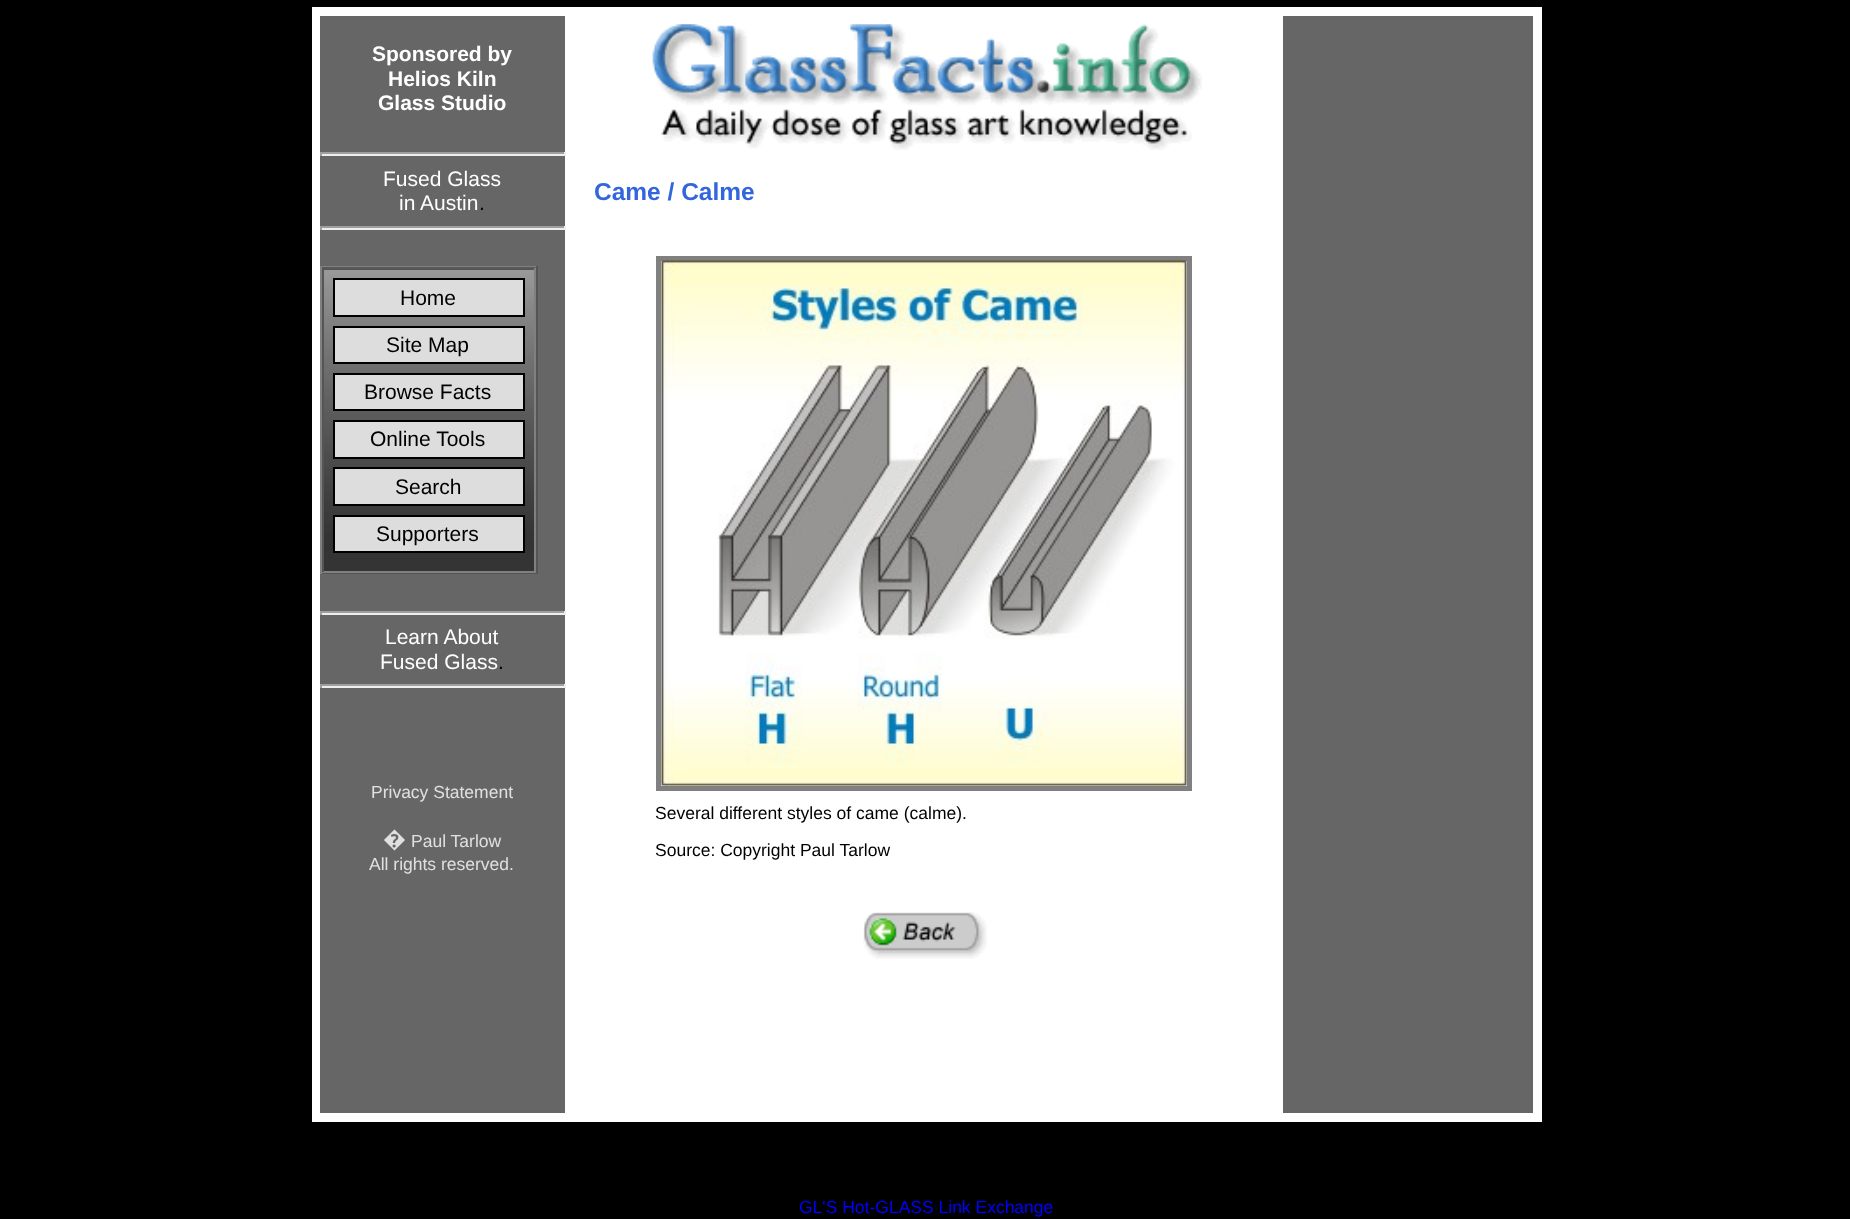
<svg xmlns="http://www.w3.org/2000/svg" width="1850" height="1219">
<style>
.a{font:bold 21px Liberation Sans;fill:#fff}
.b{font:21px Liberation Sans;fill:#fff}
.c{font:21px Liberation Sans;fill:#000}
.d{font:17.5px Liberation Sans;fill:#e0e0e0}
.e{font:23px Noto Sans;fill:#e0e0e0}
.f{font:bold 24.5px Liberation Sans;fill:#36d}
.g{font:17.5px Liberation Sans;fill:#000}
.h{font:17.5px Liberation Sans;fill:#00f}
</style>
<rect width="100%" height="100%" fill="#000"/>
<path fill="#fff" d="M312 7h1230v1115H312z"/>
<path fill="#666" d="M320 16h245v1097H320z"/>
<path fill="#9f9f9f" d="M320 152h245v2H320z"/>
<path fill="#eee" d="M564 152h2v4H564z"/>
<path fill="#eee" d="M320 154h245v2H320z"/>
<path fill="#9f9f9f" d="M320 152h2v4H320z"/>
<path fill="#9f9f9f" d="M320 226h245v2H320z"/>
<path fill="#eee" d="M564 226h2v4H564z"/>
<path fill="#eee" d="M320 228h245v2H320z"/>
<path fill="#9f9f9f" d="M320 226h2v4H320z"/>
<path fill="#808080" d="M320 266h217v2H320z"/>
<path fill="#555" d="M536 266h2v308H536z"/>
<path fill="#555" d="M320 572h217v2H320z"/>
<path fill="#808080" d="M320 266h2v308H320z"/>
<image href="1.png" x="322" y="267" width="214" height="304"/>
<path fill="#555" d="M322 268h214v2H322z"/>
<path fill="#808080" d="M534 268h2v304H534z"/>
<path fill="#808080" d="M322 571h214v2H322z"/>
<path fill="#555" d="M322 268h2v304H322z"/>
<path fill="#ddd" stroke="#000" stroke-width="2" d="M334 279h190v37H334z"/>
<path fill="#ddd" stroke="#000" stroke-width="2" d="M334 327h190v36H334z"/>
<path fill="#ddd" stroke="#000" stroke-width="2" d="M334 374h190v36H334z"/>
<path fill="#ddd" stroke="#000" stroke-width="2" d="M334 421h190v37H334z"/>
<path fill="#ddd" stroke="#000" stroke-width="2" d="M334 468h190v37H334z"/>
<path fill="#ddd" stroke="#000" stroke-width="2" d="M334 516h190v36H334z"/>
<path fill="#9f9f9f" d="M320 611h245v2H320z"/>
<path fill="#eee" d="M564 611h2v4H564z"/>
<path fill="#eee" d="M320 613h245v2H320z"/>
<path fill="#9f9f9f" d="M320 611h2v4H320z"/>
<path fill="#9f9f9f" d="M320 684h245v2H320z"/>
<path fill="#eee" d="M564 684h2v4H564z"/>
<path fill="#eee" d="M320 686h245v2H320z"/>
<path fill="#9f9f9f" d="M320 684h2v4H320z"/>
<image href="2.png" x="652" y="24" width="550" height="126"/>
<path fill="none" stroke="#808080" stroke-width="5" d="M658.5 258.5h531v530H658.5z"/>
<image href="3.png" x="661" y="260" width="526" height="526"/>
<image href="4.png" x="863" y="912" width="124" height="47"/>
<path fill="#666" d="M1283 16h250v1097H1283z"/>
<text class="a" x="372" y="61">Sponsored by</text>
<text class="a" x="388" y="86">Helios Kiln</text>
<text class="a" x="378" y="110">Glass Studio</text>
<text class="b" x="383" y="186">Fused Glass</text>
<text class="b" x="399" y="210">in Austin</text>
<text class="c" x="479" y="210">.</text>
<text class="c" x="400" y="305">Home</text>
<text class="c" x="386" y="352">Site Map</text>
<text class="c" x="364" y="399">Browse Facts</text>
<text class="c" x="370" y="446">Online Tools</text>
<text class="c" x="395" y="494">Search</text>
<text class="c" x="376" y="541">Supporters</text>
<text class="b" x="385" y="644">Learn About</text>
<text class="b" x="380" y="669">Fused Glass</text>
<text class="c" x="498" y="669">.</text>
<text class="d" x="371" y="798">Privacy Statement</text>
<text class="e" x="383" y="847">�</text>
<text class="d" x="411" y="847">Paul Tarlow</text>
<text class="d" x="369" y="870">All rights reserved.</text>
<text class="f" x="594" y="200">Came / Calme</text>
<text class="g" x="655" y="819">Several different styles of came (calme).</text>
<text class="g" x="655" y="856">Source: Copyright Paul Tarlow</text>
<text class="h" x="799" y="1213">GL'S Hot-GLASS Link Exchange</text>
</svg>
